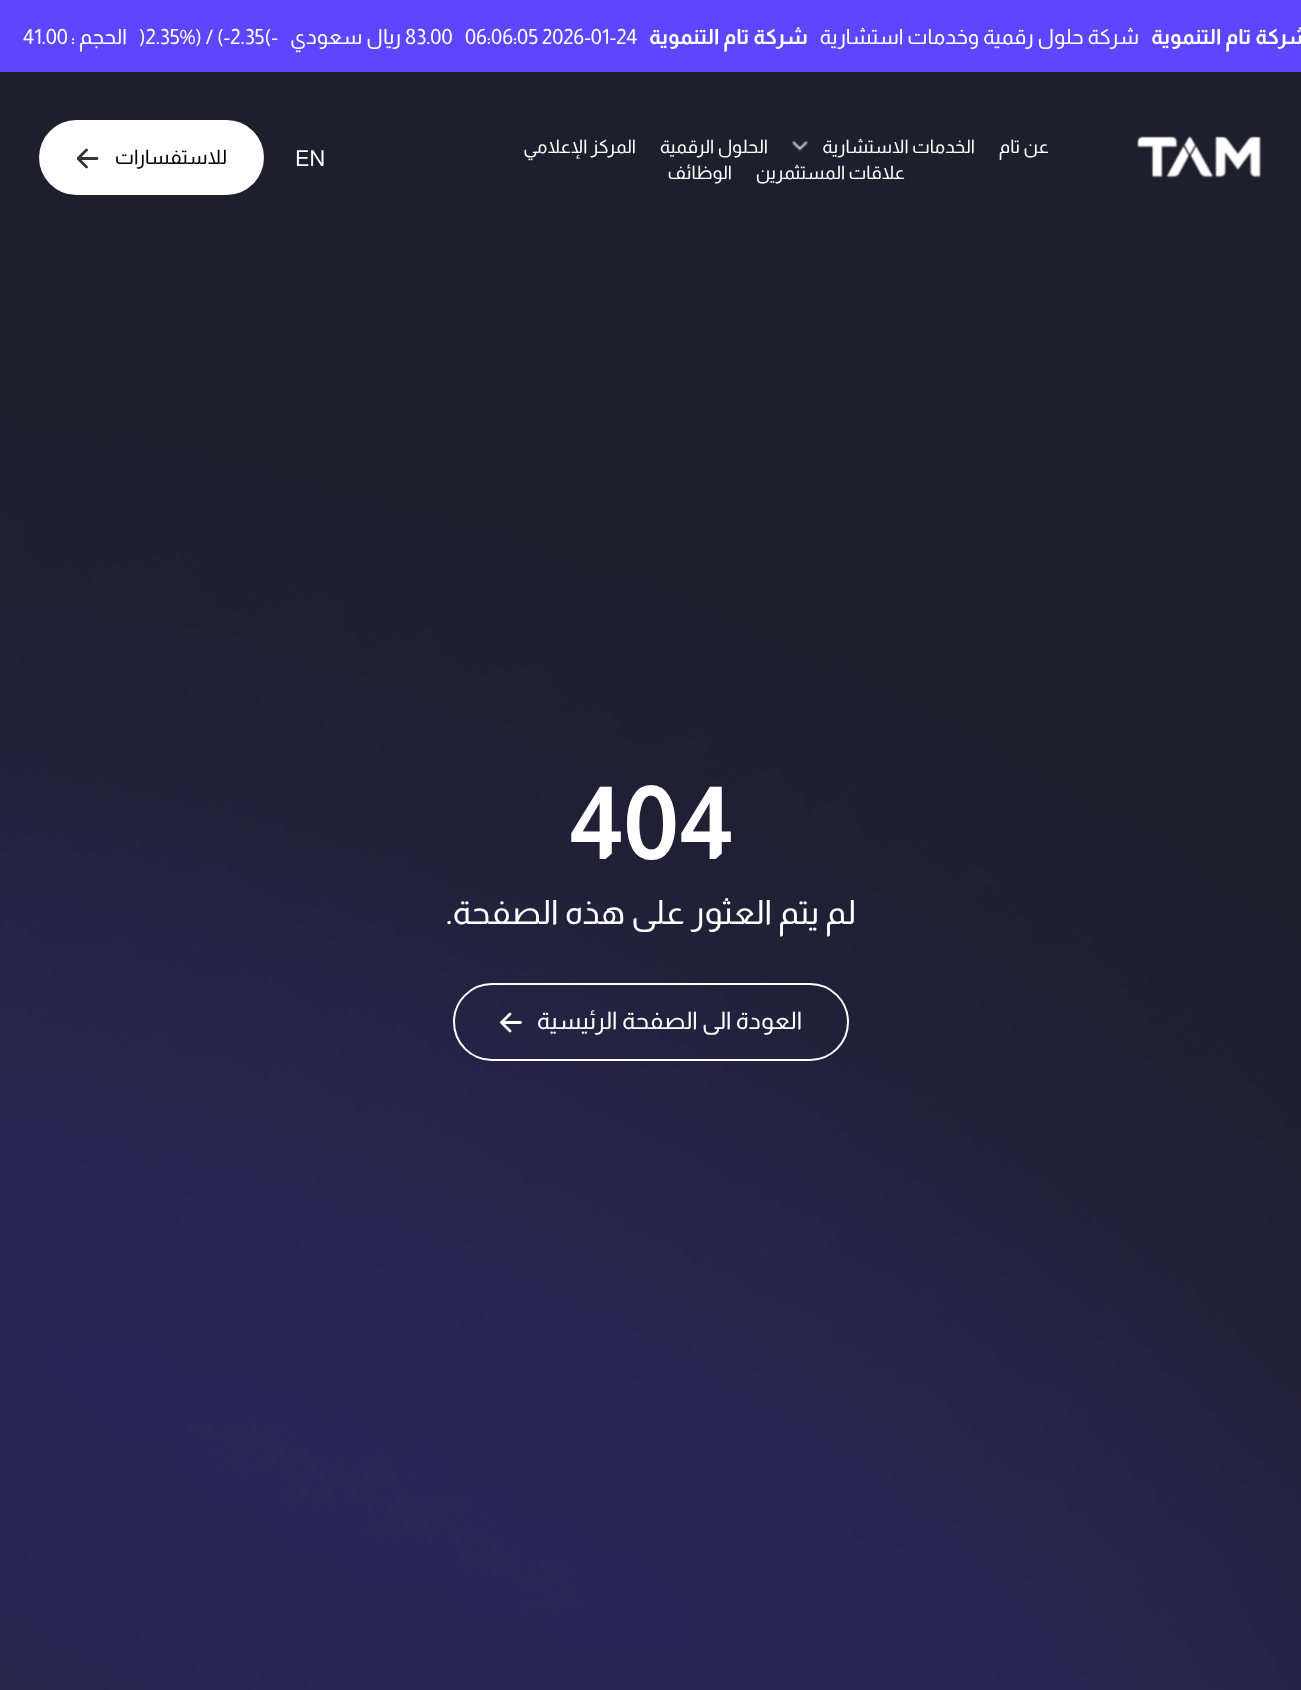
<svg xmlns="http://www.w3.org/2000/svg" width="1301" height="1690">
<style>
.a{font:bold 21px Almarai;direction:rtl;fill:#fff}
.b{font:21px Almarai;direction:rtl;fill:#fff}
.c{font:21px Almarai;fill:#fff}
.d{font:18.5px Almarai;direction:rtl;fill:#fff}
.e{font:22px Almarai;fill:#fff}
.f{font:20px Almarai;direction:rtl;fill:#000}
.g{font:bold 101px Almarai;fill:#fff}
.h{font:33.6px Almarai;direction:rtl;fill:#fff}
.i{font:24px Almarai;direction:rtl;fill:#fff}
</style>
<defs>
<clipPath id="clip1"><path d="M77 147h22v23H77z"/></clipPath>
</defs>
<rect width="100%" height="100%" fill="#fff"/>
<path fill="#5e45ff" d="M0 0h1301v72H0z"/>
<image href="3.png" x="0" y="72" width="1301" height="1618"/>
<image href="1.png" x="1137" y="136" width="125" height="42"/>
<image href="2.png" x="791" y="141" width="17" height="11"/>
<rect fill="#fff" x="39" y="120" width="225" height="75" rx="37.5"/>
<g clip-path="url(#clip1)">
<path fill="none" stroke="#353535" stroke-width="2.8" stroke-linecap="round" stroke-linejoin="round" d="M78 158.5h19m-10.5 8.5l-8.5-8.5l8.5-8.5"/>
</g>
<rect fill="none" stroke="#fff" stroke-width="2" x="454" y="984" width="394" height="76" rx="38"/>
<path fill="none" stroke="#fff" stroke-width="2.8" stroke-linecap="round" stroke-linejoin="round" d="M501.5 1022.5h19m-10.5 8.5l-8.5-8.5l8.5-8.5"/>
<text class="a" x="1310" y="44">شركة تام التنموية</text>
<text class="b" x="1139" y="44">شركة حلول رقمية وخدمات استشارية</text>
<text class="a" x="808" y="44">شركة تام التنموية</text>
<text class="c" x="465" y="44">06:06:05 2026-01-24</text>
<text class="c" x="405" y="44">83.00</text>
<text class="b" x="401" y="44">ريال سعودي</text>
<text class="c" x="139" y="44">)2.35%) / (-2.35(-</text>
<text class="b" x="127" y="44">الحجم :</text>
<text class="c" x="23" y="44">41.00</text>
<text class="d" x="1049" y="153">عن تام</text>
<text class="d" x="975" y="153">الخدمات الاستشارية</text>
<text class="d" x="768" y="153">الحلول الرقمية</text>
<text class="d" x="636" y="153">المركز الإعلامي</text>
<text class="d" x="905" y="179">ﻋﻼﻗﺎت المستثمرين</text>
<text class="d" x="732" y="179">الوظائف</text>
<text class="e" x="295" y="166">EN</text>
<text class="f" x="227" y="164">للاستفسارات</text>
<text class="g" x="569" y="859">404</text>
<text class="h" x="856" y="924">لم يتم العثور على هذه الصفحة.</text>
<text class="i" x="802" y="1029">العودة الى الصفحة الرئيسية</text>
</svg>
